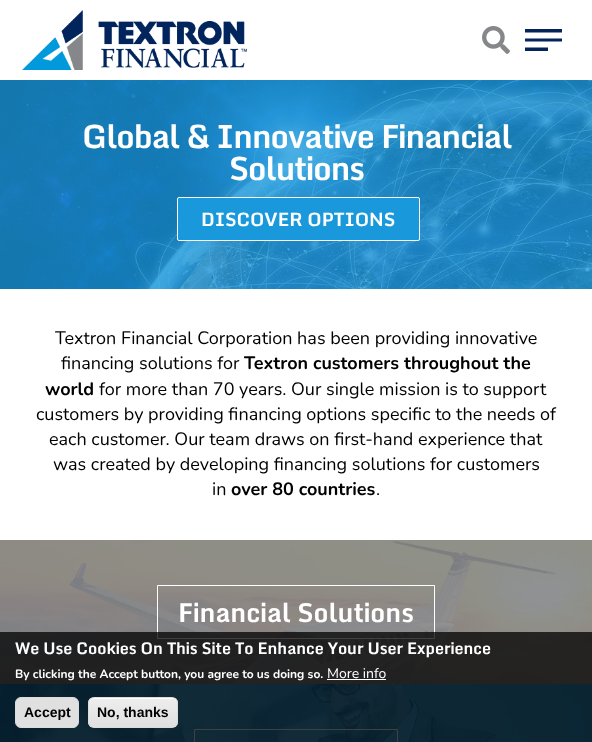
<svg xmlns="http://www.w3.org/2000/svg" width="592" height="742">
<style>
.a{font:bold 32px Monda;letter-spacing:-0.95px;fill:#fff}
.b{font:bold 18.4px Monda;fill:#fff}
.c{font:18px Nunito;fill:#000}
.d{font:bold 18px Nunito;fill:#000}
.e{font:bold 26px Monda;fill:#fff}
.f{font:bold 16px Monda;fill:#fff}
.g{font:bold 12px Nunito;fill:#fff}
.h{font:14px Nunito;fill:#fff}
.i{font:bold 14px Liberation Sans;fill:#000}
</style>
<defs>
<clipPath id="clip1"><rect x="88" y="697" width="90" height="31" rx="6"/></clipPath>
<linearGradient id="g1" gradientUnits="userSpaceOnUse" x1="133" y1="698" x2="133" y2="727"><stop offset="0.05" stop-color="#ededed"/><stop offset="1" stop-color="#dfdfdf"/></linearGradient>
</defs>
<rect width="100%" height="100%" fill="#fff"/>
<image href="1.png" x="22" y="10" width="225" height="60"/>
<image href="2.png" x="482" y="26" width="28" height="28"/>
<path fill="#02245b" d="M525 51v-3.5h23v3.5zm0-9.5v-3h37v3zm0-9v-3.5h37v3.5z"/>
<image href="3.png" x="0" y="80" width="592" height="209"/>
<rect fill="#1999dc" stroke="#fff" x="177.5" y="197.5" width="242" height="43" rx="1.5"/>
<image href="4.png" x="0" y="540" width="592" height="144"/>
<path fill="none" stroke="#fff" d="M157.5 585.5h277v53H157.5z"/>
<image href="5.png" x="0" y="684" width="592" height="58"/>
<path fill="none" stroke="#fff" d="M194.5 729.5h203v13H194.5z"/>
<path fill="#000000bf" d="M0 632h592v110H0z"/>
<path fill="#fff" d="M327 679h59v1H327z"/>
<rect fill="#e0e0e0" stroke="#dcdcdc" x="15.5" y="697.5" width="63" height="30" rx="5.5"/>
<g clip-path="url(#clip1)">
<path fill="url(#g1)" d="M88 698h90v29H88z"/>
</g>
<path fill="#fff" d="M94 699h78c3 0 5 2 5 5c0-9-12-6-18-6h-52c-6 0-18-3-18 6c0-3 2-5 5-5z"/>
<rect fill="none" stroke="#dcdcdc" x="88.5" y="697.5" width="89" height="30" rx="5.5"/>
<text class="a" x="82" y="148">Global &amp; Innovative Financial</text>
<text class="a" x="229" y="180">Solutions</text>
<text class="b" x="201" y="226">DISCOVER OPTIONS</text>
<text class="c" x="55" y="344">Textron Financial Corporation has been providing innovative</text>
<text class="c" x="61" y="369">financing solutions for</text>
<text class="d" x="244" y="369">Textron customers throughout the</text>
<text class="d" x="45" y="395">world</text>
<text class="c" x="99" y="395">for more than 70 years. Our single mission is to support</text>
<text class="c" x="36" y="420">customers by providing financing options specific to the needs of</text>
<text class="c" x="49" y="445">each customer. Our team draws on first-hand experience that</text>
<text class="c" x="53" y="470">was created by developing financing solutions for customers</text>
<text class="c" x="212" y="495">in</text>
<text class="d" x="231" y="495">over 80 countries</text>
<text class="c" x="376" y="495">.</text>
<text class="e" x="178" y="622">Financial Solutions</text>
<text class="f" x="15" y="654">We Use Cookies On This Site To Enhance Your User Experience</text>
<text class="g" x="15" y="678">By clicking the Accept button, you agree to us doing so.</text>
<text class="h" x="327" y="678">More info</text>
<text class="i" x="24" y="717">Accept</text>
<text class="i" x="97" y="717">No, thanks</text>
</svg>
